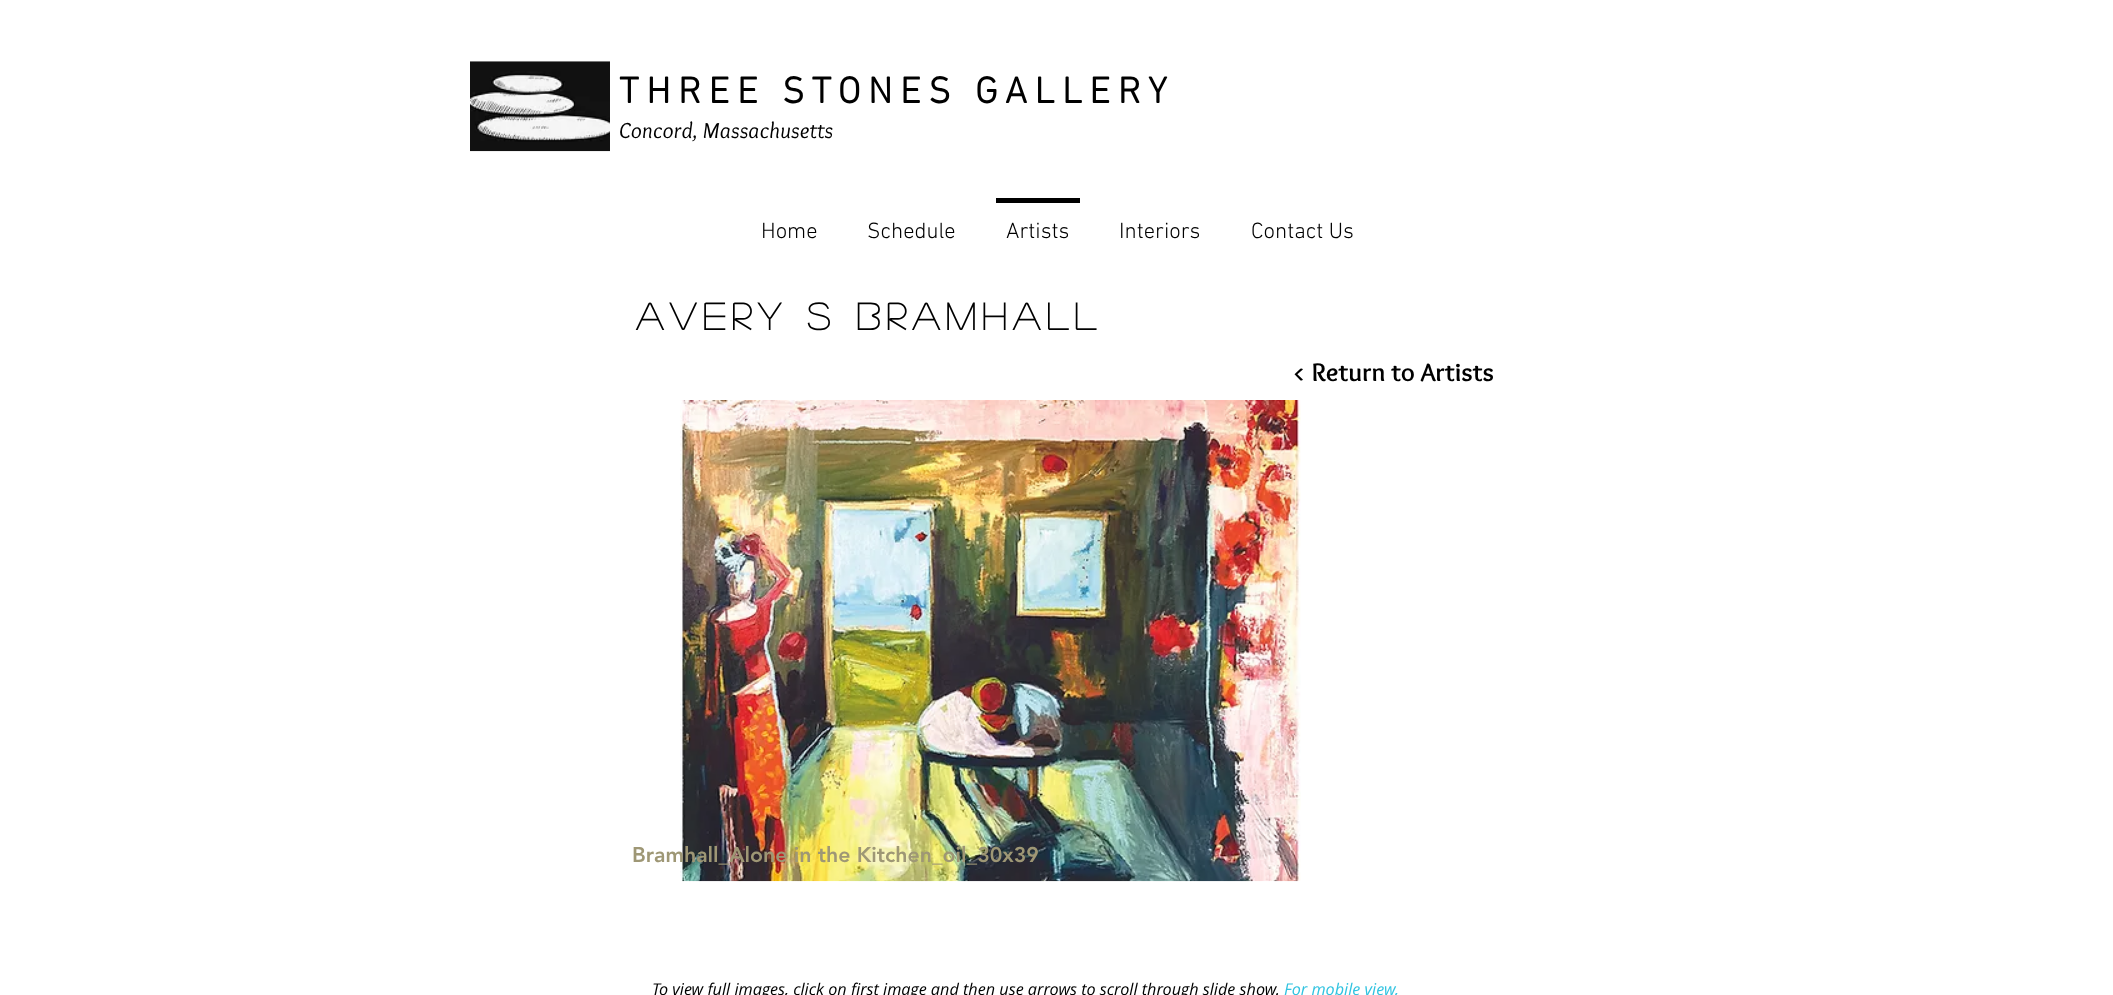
<svg xmlns="http://www.w3.org/2000/svg" width="2113" height="995">
<style>
.a{font:bold 37.5px 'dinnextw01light';letter-spacing:7.5px;fill:#000}
.b{font:italic 22.5px Overlock;letter-spacing:0.4px;fill:#000}
.c{font:300 22.5px 'dinnextw01light';fill:#000}
.d{font:bold 37.5px 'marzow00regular';letter-spacing:6.7px;fill:#000}
.e{font:bold 26.25px Overlock;fill:#000}
.f{font:900 21.25px 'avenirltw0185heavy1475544';fill:#9e9775}
.g{font:italic 16.25px Open Sans;fill:#000}
.h{font:italic 16.25px Open Sans;fill:#31c3e0}
</style>
<rect width="100%" height="100%" fill="#fff"/>
<image href="1.png" x="470" y="61" width="140" height="91"/>
<path fill="#000" d="M996 198h84v5H996z"/>
<image href="2.png" x="680" y="400" width="621" height="482"/>
<text class="a" x="619" y="103">THREE STONES GALLERY</text>
<text class="b" x="619" y="138">Concord, Massachusetts</text>
<text class="c" x="761" y="238">Home</text>
<text class="c" x="867" y="238">Schedule</text>
<text class="c" x="1006" y="238">Artists</text>
<text class="c" x="1119" y="238">Interiors</text>
<text class="c" x="1251" y="238">Contact Us</text>
<text class="d" x="636" y="330">Avery s bramhall</text>
<text class="e" x="1292" y="381">&lt; Return to Artists</text>
<text class="f" x="632" y="862">Bramhall_Alone in the Kitchen_oil_30x39</text>
<text class="g" x="652" y="995">To view full images, click on first image and then use arrows to scroll through slide show.</text>
<text class="h" x="1284" y="995">For mobile view,</text>
</svg>
